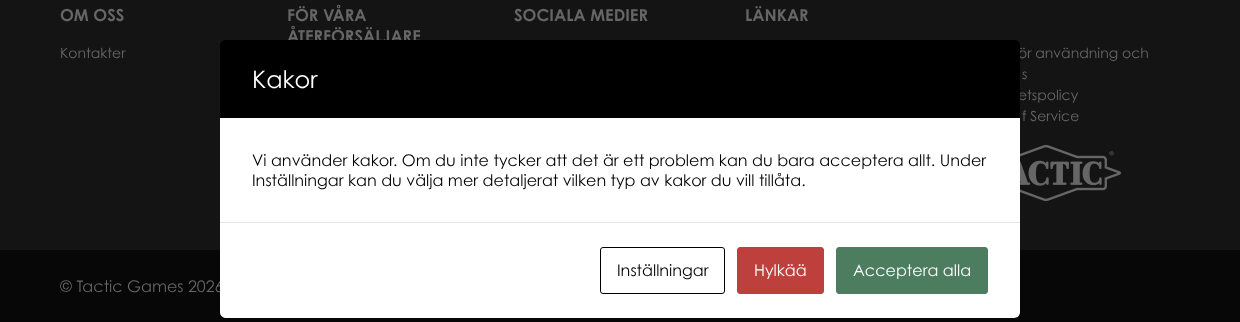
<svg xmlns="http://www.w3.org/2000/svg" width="1240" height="322">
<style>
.a{font:bold 16.5px Century Gothic;fill:#666}
.b{font:14px Century Gothic;fill:#666}
.c{font:24px Century Gothic;fill:#fff}
.d{font:16px Century Gothic;fill:#000}
.e{font:16px Century Gothic;fill:#666}
.f{font:16px Century Gothic;fill:#fff}
</style>
<rect width="100%" height="100%" fill="#070707"/>
<path fill="#141414" d="M0 0h1240v250H0z"/>
<image href="1.png" x="1020" y="145" width="101" height="56"/>
<path fill="#fff" d="M220 118h800v104H220z"/>
<text class="a" x="60" y="21">OM OSS</text>
<text class="b" x="60" y="58">Kontakter</text>
<text class="a" x="287" y="21">FÖR VÅRA</text>
<text class="a" x="287" y="42">ÅTERFÖRSÄLJARE</text>
<text class="a" x="514" y="21">SOCIALA MEDIER</text>
<text class="a" x="745" y="21">LÄNKAR</text>
<text class="b" x="1018" y="58">ör användning och</text>
<text class="b" x="1022" y="79">s</text>
<text class="b" x="1018" y="100">etspolicy</text>
<text class="b" x="1022" y="121">f Service</text>
<path fill="#000" d="M226 40h788c3.5 0 6 2.5 6 6v72h-800v-72c0-3.5 2.5-6 6-6z"/>
<text class="c" x="252" y="88">Kakor</text>
<text class="d" x="252" y="166">Vi använder kakor. Om du inte tycker att det är ett problem kan du bara acceptera allt. Under</text>
<text class="d" x="252" y="186">Inställningar kan du välja mer detaljerat vilken typ av kakor du vill tillåta.</text>
<text class="e" x="60" y="292">© Tactic Games 2026</text>
<path fill="#fff" d="M220 222h800v90c0 3.5-2.5 6-6 6h-788c-3.5 0-6-2.5-6-6z"/>
<rect fill="#4b7d5e" stroke="#4b7d5e" x="836.5" y="247.5" width="151" height="46" rx="2.5"/>
<text class="f" x="853" y="276">Acceptera alla</text>
<rect fill="#bd403c" stroke="#bd403c" x="737.5" y="247.5" width="86" height="46" rx="2.5"/>
<text class="f" x="754" y="276">Hylkää</text>
<rect fill="none" stroke="#000" x="600.5" y="247.5" width="124" height="46" rx="2.5"/>
<text class="d" x="617" y="276">Inställningar</text>
<path fill="#e6e6e6" d="M220 222h800v1H220z"/>
</svg>
